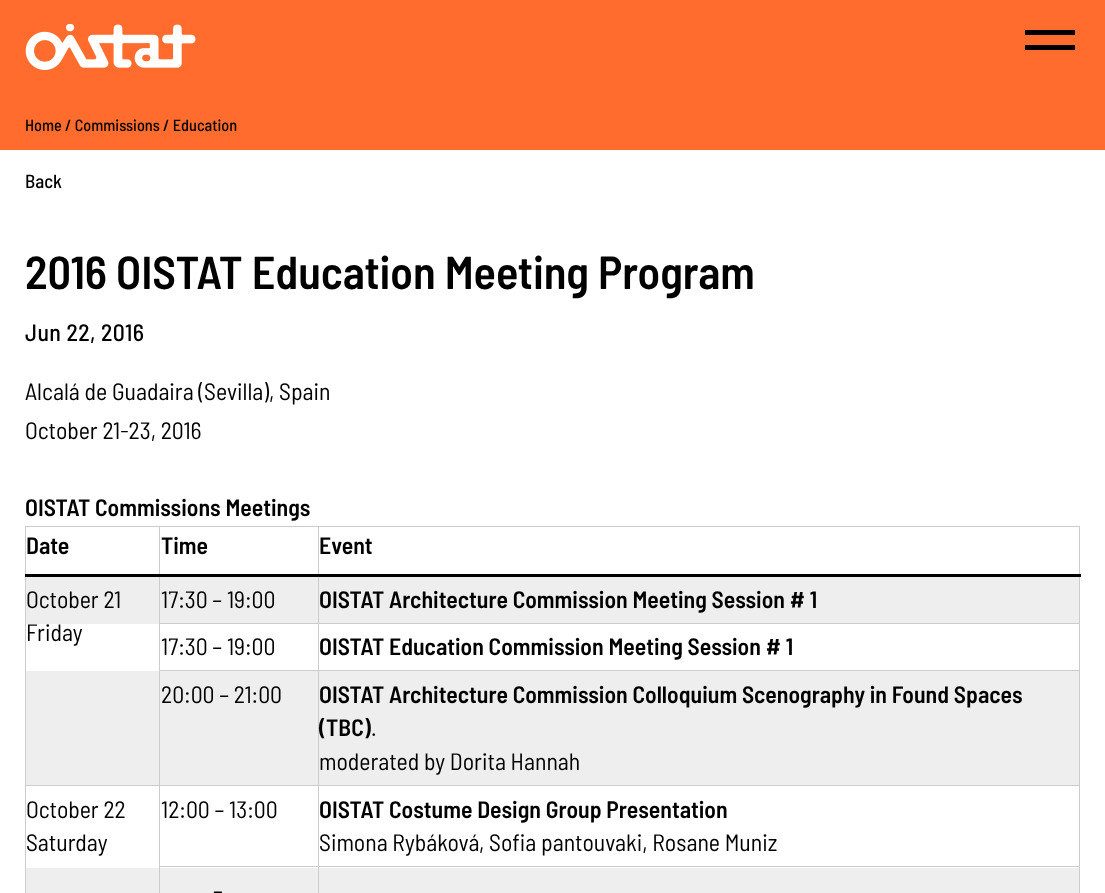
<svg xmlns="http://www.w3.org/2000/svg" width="1105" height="893">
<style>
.a{font:500 16.25px Barlow Semi Condensed;fill:#000}
.b{font:500 19px Barlow Semi Condensed;fill:#000}
.c{font:600 46.25px Barlow Semi Condensed;letter-spacing:-0.1px;fill:#000}
.d{font:500 23.75px Barlow Semi Condensed;letter-spacing:0.4px;fill:#000}
.e{font:23.75px Barlow Semi Condensed;fill:#000}
.f{font:600 23.75px Barlow Semi Condensed;fill:#000}
</style>
<rect width="100%" height="100%" fill="#fff"/>
<path fill="#ff6c2d" d="M0 0h1105v150H0z"/>
<path fill="#000" d="M1025 30h50v5H1025z"/>
<path fill="#000" d="M1025 45h50v5H1025z"/>
<image href="1.png" x="25" y="24" width="171" height="46"/>
<path fill="#ccc" d="M318 526h762v1H318z"/>
<path fill="#eee" d="M26 577h1053v47H26z"/>
<path fill="#ccc" d="M318 623h762v1H318z"/>
<path fill="#ccc" d="M318 670h762v1H318z"/>
<path fill="#eee" d="M26 671h1053v114H26z"/>
<path fill="#ccc" d="M318 785h762v1H318z"/>
<path fill="#ccc" d="M318 866h762v1H318z"/>
<path fill="#eee" d="M26 868h1053v25H26z"/>
<path fill="#ccc" d="M318 866h1v27H318z"/>
<path fill="#ccc" d="M159 866h160v1H159z"/>
<path fill="#ccc" d="M318 785h1v83H318z"/>
<path fill="#ccc" d="M159 785h160v1H159z"/>
<path fill="#ccc" d="M318 670h1v116H318z"/>
<path fill="#ccc" d="M159 670h160v1H159z"/>
<path fill="#ccc" d="M318 623h1v48H318z"/>
<path fill="#ccc" d="M159 623h160v1H159z"/>
<path fill="#ccc" d="M318 575h1v49H318z"/>
<path fill="#ccc" d="M318 526h1v50H318z"/>
<path fill="#ccc" d="M159 526h160v1H159z"/>
<path fill="#ccc" d="M159 866h1v27H159z"/>
<path fill="#ccc" d="M159 785h1v83H159z"/>
<path fill="#ccc" d="M25 785h135v1H25z"/>
<path fill="#ccc" d="M159 670h1v116H159z"/>
<path fill="#ccc" d="M159 575h1v96H159z"/>
<path fill="#ccc" d="M159 526h1v50H159z"/>
<path fill="#ccc" d="M25 526h135v1H25z"/>
<path fill="#ccc" d="M25 575h1v318H25z"/>
<path fill="#ccc" d="M25 526h1v50H25z"/>
<path fill="#ccc" d="M1079 866h1v27H1079z"/>
<path fill="#ccc" d="M1079 785h1v83H1079z"/>
<path fill="#ccc" d="M1079 670h1v116H1079z"/>
<path fill="#ccc" d="M1079 575h1v96H1079z"/>
<path fill="#ccc" d="M1079 526h1v50H1079z"/>
<path fill="#000" d="M25 574h1056v3H25z"/>
<text class="a" x="25" y="131">Home / Commissions / Education</text>
<text class="b" x="25" y="188">Back</text>
<text class="c" x="25" y="289">2016 OISTAT Education Meeting Program</text>
<text class="d" x="25" y="341">Jun 22, 2016</text>
<text class="e" x="25" y="400">Alcalá de Guadaira (Sevilla), Spain</text>
<text class="e" x="25" y="439">October 21-23, 2016</text>
<text class="f" x="25" y="516">OISTAT Commissions Meetings</text>
<text class="f" x="26" y="554">Date</text>
<text class="f" x="161" y="554">Time</text>
<text class="f" x="319" y="554">Event</text>
<text class="e" x="26" y="608">October 21</text>
<text class="e" x="26" y="641">Friday</text>
<text class="e" x="161" y="608">17:30 – 19:00</text>
<text class="f" x="319" y="608">OISTAT Architecture Commission Meeting Session # 1</text>
<text class="e" x="161" y="655">17:30 – 19:00</text>
<text class="f" x="319" y="655">OISTAT Education Commission Meeting Session # 1</text>
<text class="e" x="161" y="703">20:00 – 21:00</text>
<text class="f" x="319" y="703">OISTAT Architecture Commission Colloquium Scenography in Found Spaces</text>
<text class="f" x="319" y="736">(TBC)</text>
<text class="e" x="371" y="736">.</text>
<text class="e" x="319" y="770">moderated by Dorita Hannah</text>
<text class="e" x="26" y="818">October 22</text>
<text class="e" x="26" y="851">Saturday</text>
<text class="e" x="161" y="818">12:00 – 13:00</text>
<text class="f" x="319" y="818">OISTAT Costume Design Group Presentation</text>
<text class="e" x="319" y="851">Simona Rybáková, Sofia pantouvaki, Rosane Muniz</text>
<text class="e" x="213" y="899">–</text>
</svg>
